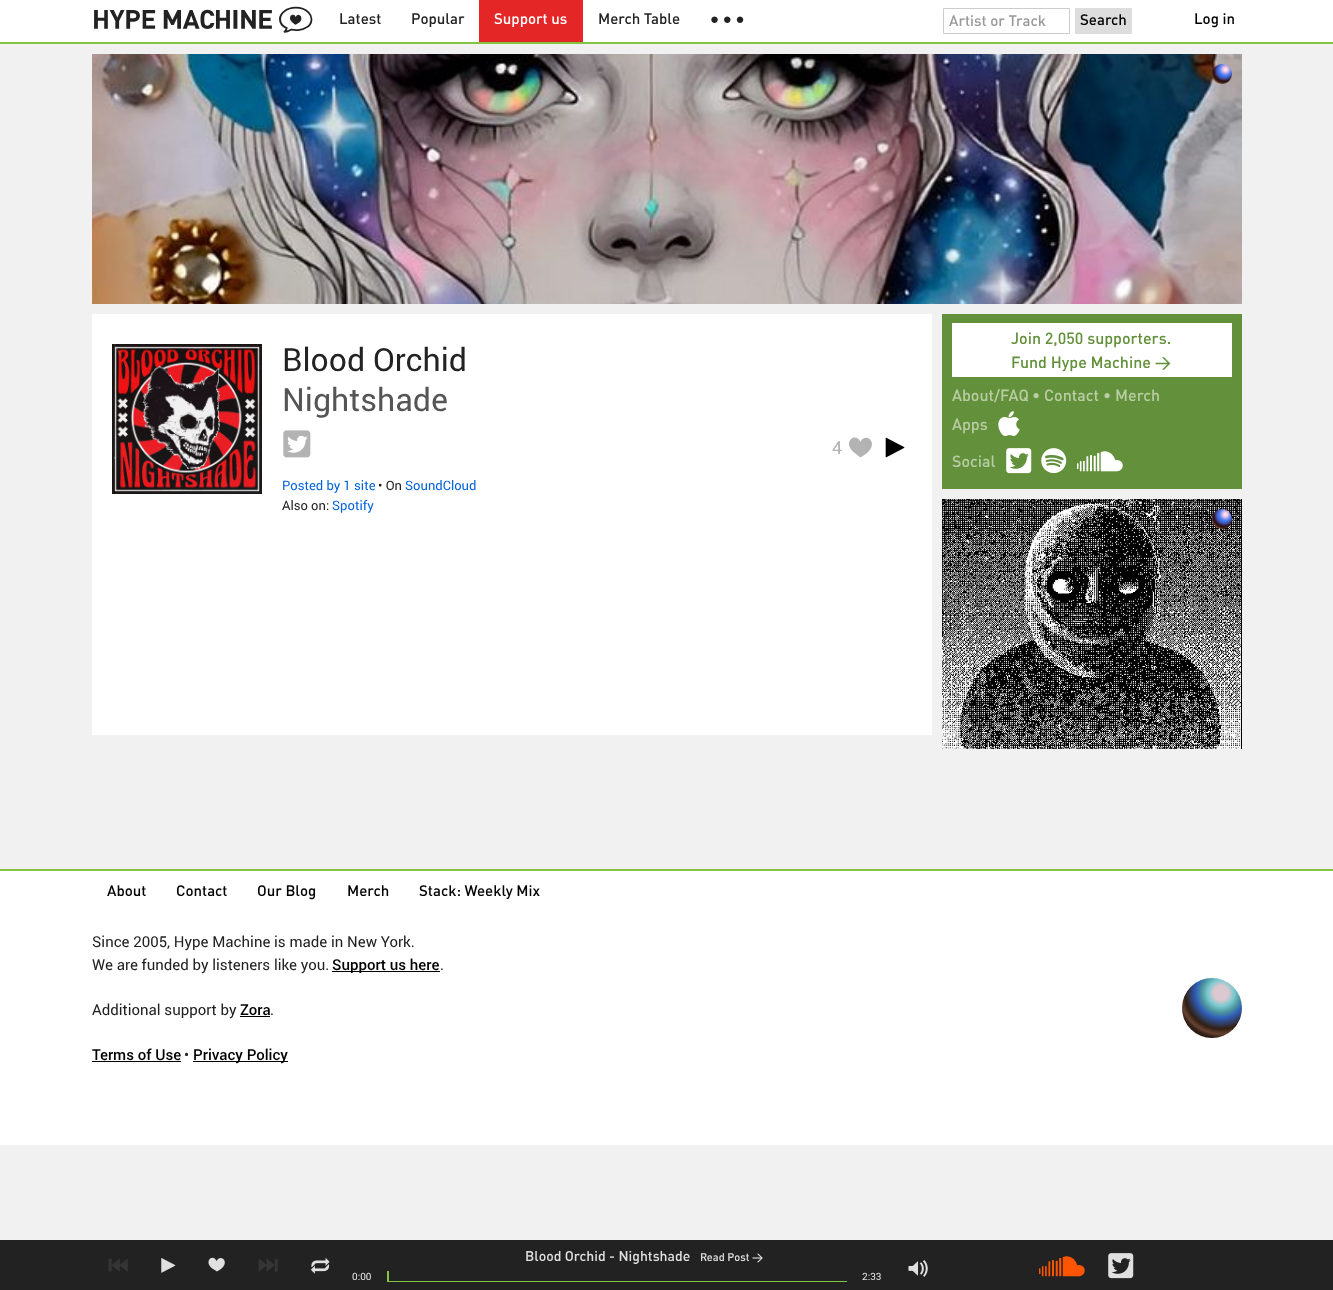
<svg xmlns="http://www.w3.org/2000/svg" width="1333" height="1290">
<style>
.a{font:38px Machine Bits;fill:#222}
.b{font:500 15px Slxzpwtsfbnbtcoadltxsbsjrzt;fill:#222}
.c{font:500 15px Slxzpwtsfbnbtcoadltxsbsjrzt;fill:#fff}
.d{font:bold 15px Liberation Serif;fill:#222}
.e{font:500 15px Slxzpwtsfbnbtcoadltxsbsjrzt;fill:#999}
.f{font:500 15px Slxzpwtsfbnbtcoadltxsbsjrzt;fill:#000}
.g{font:32px Roboto;fill:#222}
.h{font:32px Roboto;fill:#555}
.i{font:18px Roboto;fill:#b3b3b3}
.j{font:13px Roboto;fill:#0063dc}
.k{font:13px Roboto;fill:#222}
.l{font:500 16px Slxzpwtsfbnbtcoadltxsbsjrzt;fill:#63903a}
.m{font:500 16px Slxzpwtsfbnbtcoadltxsbsjrzt;fill:#b9cda5}
.n{font:20px Machine Bits;fill:#fff}
.o{font:15px Roboto;fill:#222}
.p{font:500 15px Roboto;fill:#000}
.q{font:500 14px Slxzpwtsfbnbtcoadltxsbsjrzt;fill:#e0e0e0}
.r{font:500 11px Slxzpwtsfbnbtcoadltxsbsjrzt;fill:#e0e0e0}
.s{font:20px Machine Bits;fill:#f50}
.t{font:10px Roboto;fill:#e0e0e0}
</style>
<defs>
<radialGradient id="g1" gradientUnits="userSpaceOnUse" cx="1221" cy="993" r="45"><stop offset="0.16" stop-color="#dcc8d0"/><stop offset="0.3" stop-color="#78c8cf"/><stop offset="0.43" stop-color="#4d959e"/><stop offset="0.56" stop-color="#305eb9"/><stop offset="0.8" stop-color="#311f12"/><stop offset="0.91" stop-color="#684232"/><stop offset="1" stop-color="#2d1c13"/></radialGradient>
<clipPath id="clip1"><path d="M952 389h280v16H952z"/></clipPath>
</defs>
<rect width="100%" height="100%" fill="#f1f1f1"/>
<path fill="#fff" d="M0 0h1333v42H0z"/>
<path fill="#83c441" d="M0 42h1333v2H0z"/>
<path fill="#e42626" d="M479 0h104v42H479z"/>
<path fill="none" stroke="#ccc" d="M943.5 8.5h126v25H943.5z"/>
<path fill="#ddd" d="M1075 8h57v26H1075z"/>
<image href="1.png" x="92" y="54" width="1150" height="250"/>
<path fill="#fff" d="M92 314h840v421H92z"/>
<image href="2.png" x="112" y="344" width="150" height="150"/>
<image href="3.png" x="283" y="430" width="28" height="28"/>
<path fill="#b3b3b3" d="M860.5 442c4.5-10.5 19.5 .5 6 11.5l-6 4l-7-5.5c-11.5-10.5 2.5-20.5 7-10z"/>
<image href="4.png" x="885" y="437" width="20" height="21"/>
<path fill="#63903a" d="M942 314h300v175H942z"/>
<path fill="#fff" d="M952 323h280v54H952z"/>
<image href="5.png" x="998" y="411" width="22" height="26"/>
<image href="6.png" x="1006" y="448" width="26" height="26"/>
<image href="7.png" x="1041" y="448" width="26" height="26"/>
<image href="8.png" x="942" y="499" width="300" height="250"/>
<path fill="#fff" d="M0 871h1333v274H0z"/>
<path fill="#83c441" d="M0 869h1333v2H0z"/>
<path fill="#000" d="M332 971h108v1H332z"/>
<path fill="#000" d="M240 1016h30v1H240z"/>
<circle fill="url(#g1)" cx="1212" cy="1008" r="30"/>
<path fill="#000" d="M92 1061h89v1H92z"/>
<path fill="#000" d="M193 1061h95v1H193z"/>
<path fill="#222" d="M0 1240h1333v50H0z"/>
<image href="9.png" x="108" y="1258" width="20" height="14"/>
<image href="10.png" x="161" y="1258" width="15" height="15"/>
<path fill="#e0e0e0" d="M216.5 1261c3.5-7.5 14 0 4.5 8l-4 2.5l-5.5-3.5c-8-7.5 2-14.5 5-7z"/>
<image href="11.png" x="258" y="1258" width="20" height="14"/>
<image href="12.png" x="310" y="1257" width="20" height="17"/>
<image href="13.png" x="1108" y="1253" width="26" height="26"/>
<path fill="#83c441" d="M387 1281h460v1H387z"/>
<path fill="#83c441" d="M387 1271h2v10H387z"/>
<image href="14.png" x="908" y="1260" width="20" height="17"/>
<text class="a" x="92" y="28">1</text>
<text class="b" x="339" y="24">Latest</text>
<text class="b" x="411" y="24">Popular</text>
<text class="c" x="494" y="24">Support us</text>
<text class="b" x="598" y="24">Merch Table</text>
<text class="d" x="710" y="24">● ● ●</text>
<text class="e" x="949" y="26">Artist or Track</text>
<text class="f" x="1080" y="25">Search</text>
<text class="f" x="1194" y="24">Log in</text>
<text class="g" x="282" y="371">Blood Orchid</text>
<text class="h" x="282" y="411">Nightshade</text>
<text class="i" x="832" y="454">4</text>
<text class="j" x="282" y="490">Posted by 1 site</text>
<text class="k" x="378" y="490">• On</text>
<text class="j" x="405" y="490">SoundCloud</text>
<text class="k" x="282" y="510">Also on:</text>
<text class="j" x="332" y="510">Spotify</text>
<text class="l" x="1011" y="344">Join 2,050 supporters.</text>
<text class="l" x="1011" y="368">Fund Hype Machine →</text>
<g clip-path="url(#clip1)">
<text class="m" x="952" y="401">About/FAQ</text>
</g>
<text class="m" x="1032" y="401">•</text>
<text class="m" x="1044" y="401">Contact</text>
<text class="m" x="1103" y="401">•</text>
<text class="m" x="1115" y="401">Merch</text>
<text class="m" x="952" y="430">Apps</text>
<text class="m" x="952" y="467">Social</text>
<text class="n" x="1076" y="469">9</text>
<text class="f" x="107" y="896">About</text>
<text class="f" x="176" y="896">Contact</text>
<text class="f" x="257" y="896">Our Blog</text>
<text class="f" x="347" y="896">Merch</text>
<text class="f" x="419" y="896">Stack: Weekly Mix</text>
<text class="o" x="92" y="947">Since 2005, Hype Machine is made in New York.</text>
<text class="o" x="92" y="970">We are funded by listeners like you.</text>
<text class="p" x="332" y="970">Support us here</text>
<text class="o" x="440" y="970">.</text>
<text class="o" x="92" y="1015">Additional support by</text>
<text class="p" x="240" y="1015">Zora</text>
<text class="o" x="270" y="1015">.</text>
<text class="p" x="92" y="1060">Terms of Use</text>
<text class="o" x="184" y="1060">•</text>
<text class="p" x="193" y="1060">Privacy Policy</text>
<text class="q" x="525" y="1261">Blood Orchid - Nightshade</text>
<text class="r" x="700" y="1261">Read Post →</text>
<text class="s" x="1038" y="1274">9</text>
<text class="t" x="352" y="1280">0:00</text>
<text class="t" x="862" y="1280">2:33</text>
</svg>
